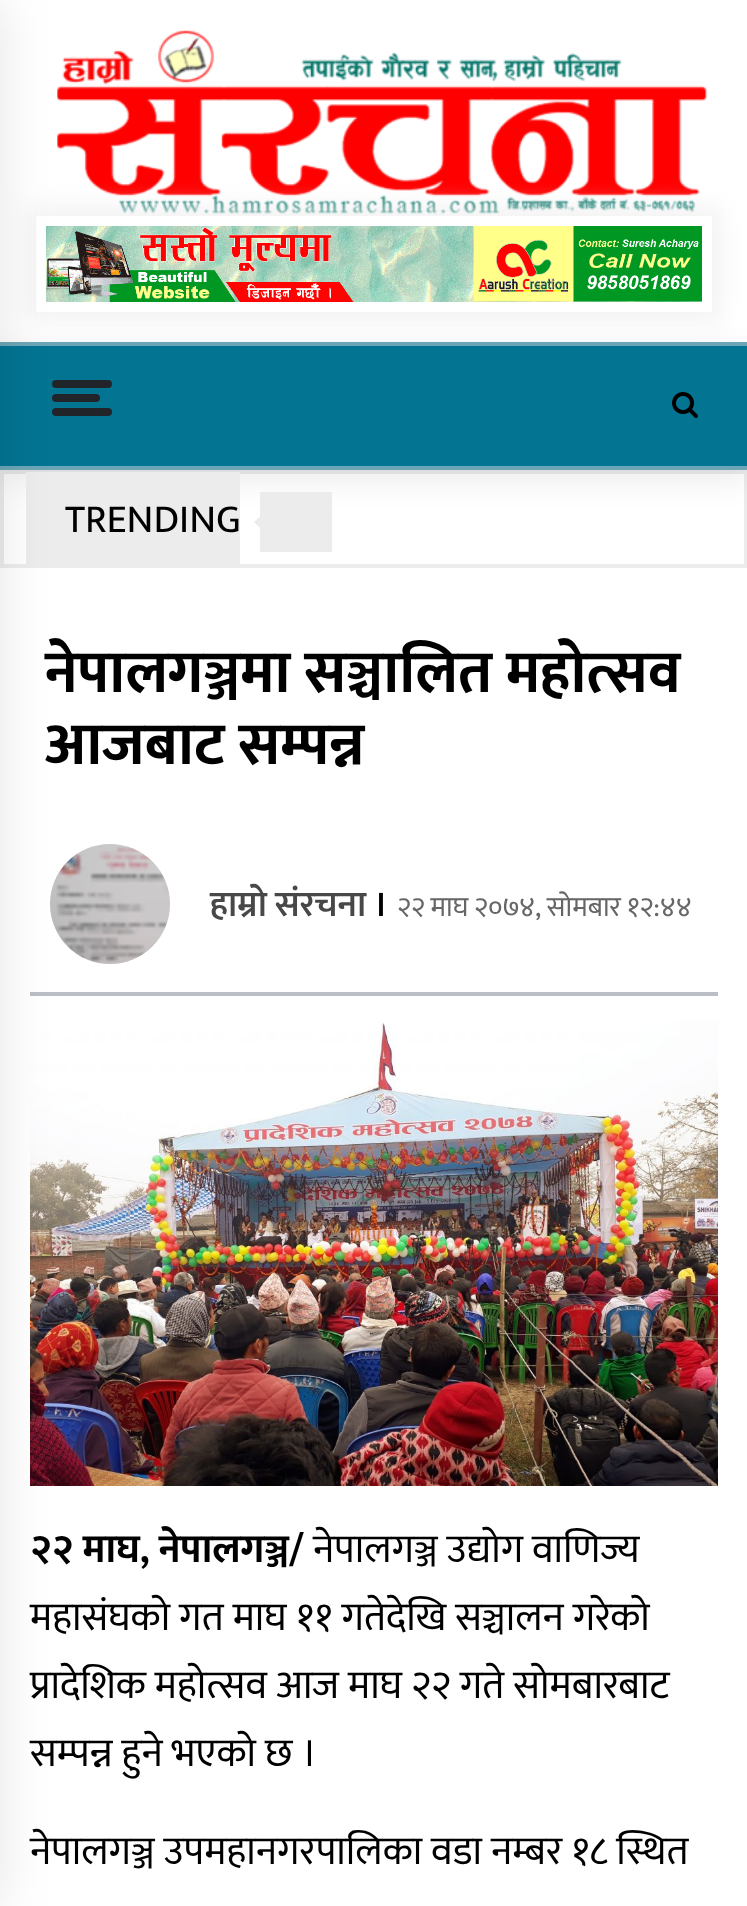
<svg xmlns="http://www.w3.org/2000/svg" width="747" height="1906">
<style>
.a{font:40px Mukta;fill:#000}
.b{font:bold 60px Mukta;fill:#000}
.c{font:600 36px Mukta;fill:#484848}
.d{font:600 36px Mukta;fill:#000}
.e{font:28px Mukta;fill:#666}
.f{font:bold 40px Mukta;fill:#000}
</style>
<defs>
<clipPath id="clip1"><path d="M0 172h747v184h-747zm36 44h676v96h-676z" clip-rule="evenodd"/></clipPath>
</defs>
<rect width="100%" height="100%" fill="#fff"/>
<image href="1.png" x="57" y="30" width="650" height="184"/>
<g clip-path="url(#clip1)">
<path fill="#eeeeeeb3" filter="blur(11px)" d="M26 206h696v116H26z"/>
</g>
<image href="2.png" x="46" y="226" width="656" height="76"/>
<path fill="none" stroke="#ececec" stroke-width="4" d="M2 472h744v94H2z"/>
<path fill="#00000014" filter="blur(15px)" d="M0 352h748v128H0z"/>
<path fill="#037492" d="M0 346h747v120H0z"/>
<path fill="#6ca6b6" d="M0 342h747v4H0z"/>
<path fill="#6ca6b6" d="M0 466h747v4H0z"/>
<rect fill="#212529" x="52" y="380" width="60" height="8" rx="4"/>
<rect fill="#212529" x="52" y="408" width="60" height="8" rx="4"/>
<rect fill="#212529" x="52" y="394" width="48" height="8" rx="4"/>
<path fill="#ececec" d="M26 472h214v92H26z"/>
<path fill="#babfc6" d="M30 992h688v4H30z"/>
<image href="4.png" x="50" y="844" width="120" height="120"/>
<image href="5.png" x="30" y="1021" width="688" height="465"/>
<path fill="#0000001a" filter="blur(25px)" d="M-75 0h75v1906H-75z"/>
<image href="3.png" x="672" y="392" width="26" height="26"/>
<path fill="#ececec" d="M260 492h72v60H260z"/>
<path fill="#ececec" d="M277 500l22 22l-22 23l-23-23z"/>
<text class="a" x="65" y="532">TRENDING</text>
<text class="b" x="45" y="692">नेपालगञ्जमा सञ्चालित महोत्सव</text>
<text class="b" x="45" y="764">आजबाट सम्पन्न</text>
<text class="c" x="210" y="916">हाम्रो संरचना</text>
<text class="d" x="374" y="916">।</text>
<text class="e" x="397" y="916" word-spacing="-0.5">२२ माघ २०७४, सोमबार १२:४४</text>
<text class="f" x="30" y="1562">२२ माघ, नेपालगञ्ज/</text>
<text class="a" x="313" y="1562">नेपालगञ्ज उद्योग वाणिज्य</text>
<text class="a" x="30" y="1630">महासंघको गत माघ ११ गतेदेखि सञ्चालन गरेको</text>
<text class="a" x="30" y="1698">प्रादेशिक महोत्सव आज माघ २२ गते सोमबारबाट</text>
<text class="a" x="30" y="1766">सम्पन्न हुने भएको छ ।</text>
<text class="a" x="30" y="1864">नेपालगञ्ज उपमहानगरपालिका वडा नम्बर १८ स्थित</text>
</svg>
